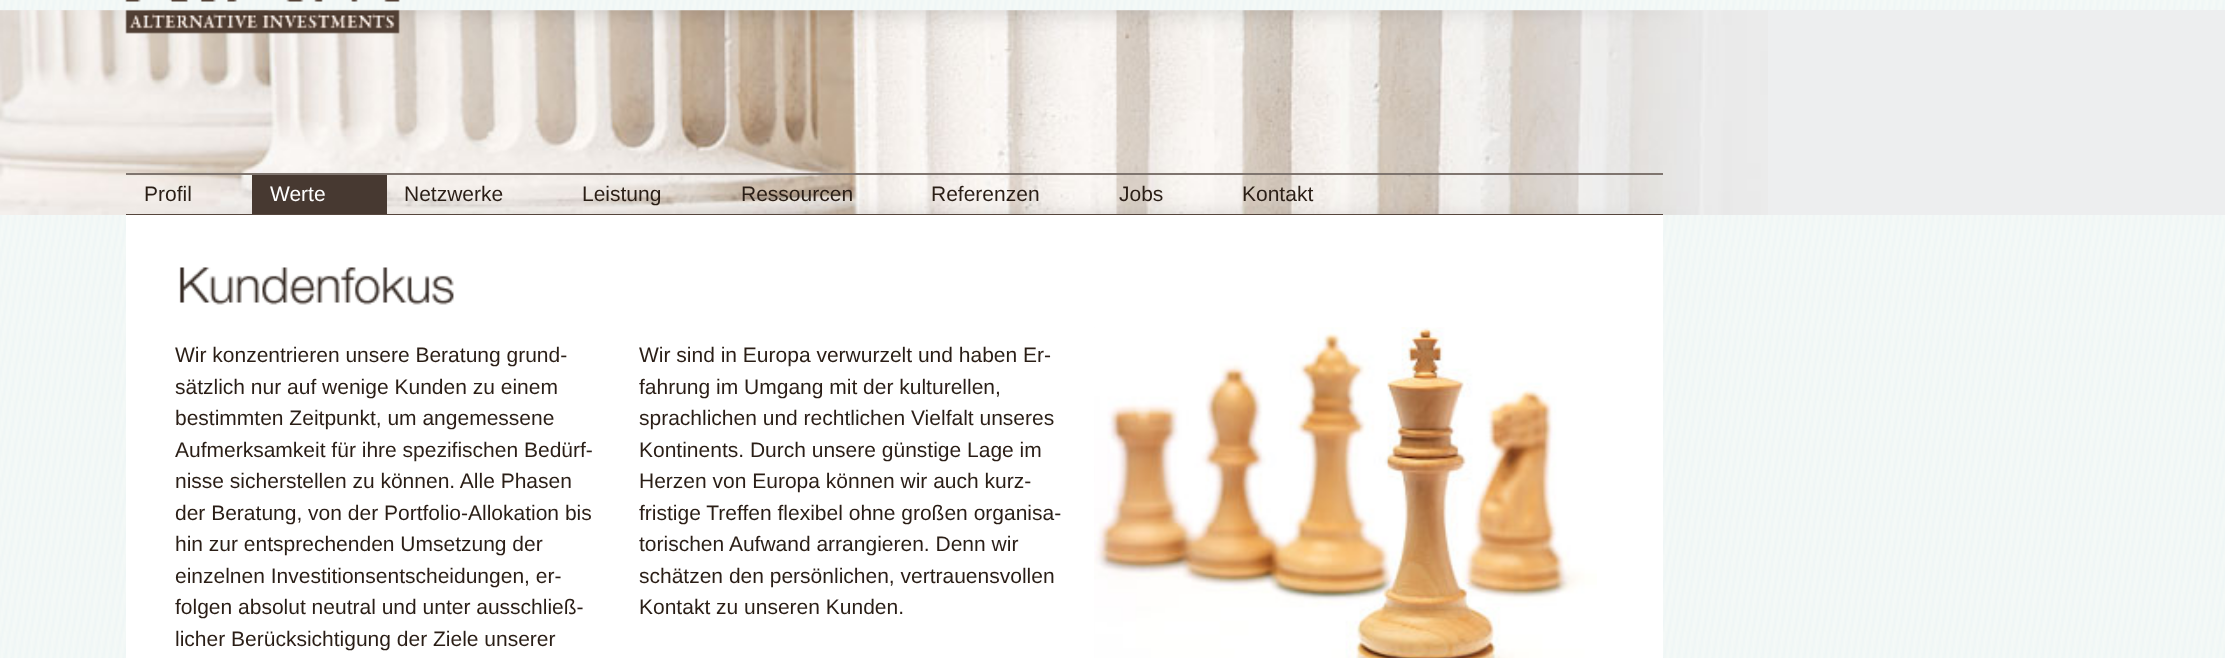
<svg xmlns="http://www.w3.org/2000/svg" width="2225" height="658">
<style>
.a{font:21px Liberation Sans;fill:#2a1e16}
.b{font:21px Liberation Sans;fill:#fff}
</style>
<rect width="100%" height="100%" fill="#fff"/>
<image href="1.png" x="0" y="0" width="2225" height="658"/>
<path fill="#edeeef" d="M0 10h2225v205H0z"/>
<image href="2.png" x="0" y="10" width="1768" height="205"/>
<image href="3.png" x="125" y="0" width="275" height="34"/>
<path fill="#7f756f" d="M126 173h1537v2H126z"/>
<path fill="#56463d" d="M126 214h1537v1H126z"/>
<path fill="#473931" d="M252 175h135v39H252z"/>
<path fill="#fff" d="M126 215h1537v443H126z"/>
<image href="4.png" x="179" y="267" width="275" height="38"/>
<image href="5.png" x="1094" y="327" width="503" height="331"/>
<text class="a" x="144" y="201">Profil</text>
<text class="b" x="270" y="201">Werte</text>
<text class="a" x="404" y="201">Netzwerke</text>
<text class="a" x="582" y="201">Leistung</text>
<text class="a" x="741" y="201">Ressourcen</text>
<text class="a" x="931" y="201">Referenzen</text>
<text class="a" x="1119" y="201">Jobs</text>
<text class="a" x="1242" y="201">Kontakt</text>
<text class="a" x="175" y="362">Wir konzentrieren unsere Beratung grund-</text>
<text class="a" x="175" y="394">sätzlich nur auf wenige Kunden zu einem</text>
<text class="a" x="175" y="425">bestimmten Zeitpunkt, um angemessene</text>
<text class="a" x="175" y="457">Aufmerksamkeit für ihre spezifischen Bedürf-</text>
<text class="a" x="175" y="488">nisse sicherstellen zu können. Alle Phasen</text>
<text class="a" x="175" y="520">der Beratung, von der Portfolio-Allokation bis</text>
<text class="a" x="175" y="551">hin zur entsprechenden Umsetzung der</text>
<text class="a" x="175" y="583">einzelnen Investitionsentscheidungen, er-</text>
<text class="a" x="175" y="614">folgen absolut neutral und unter ausschließ-</text>
<text class="a" x="175" y="646">licher Berücksichtigung der Ziele unserer</text>
<text class="a" x="639" y="362">Wir sind in Europa verwurzelt und haben Er-</text>
<text class="a" x="639" y="394">fahrung im Umgang mit der kulturellen,</text>
<text class="a" x="639" y="425">sprachlichen und rechtlichen Vielfalt unseres</text>
<text class="a" x="639" y="457">Kontinents. Durch unsere günstige Lage im</text>
<text class="a" x="639" y="488">Herzen von Europa können wir auch kurz-</text>
<text class="a" x="639" y="520">fristige Treffen flexibel ohne großen organisa-</text>
<text class="a" x="639" y="551">torischen Aufwand arrangieren. Denn wir</text>
<text class="a" x="639" y="583">schätzen den persönlichen, vertrauensvollen</text>
<text class="a" x="639" y="614">Kontakt zu unseren Kunden.</text>
</svg>
